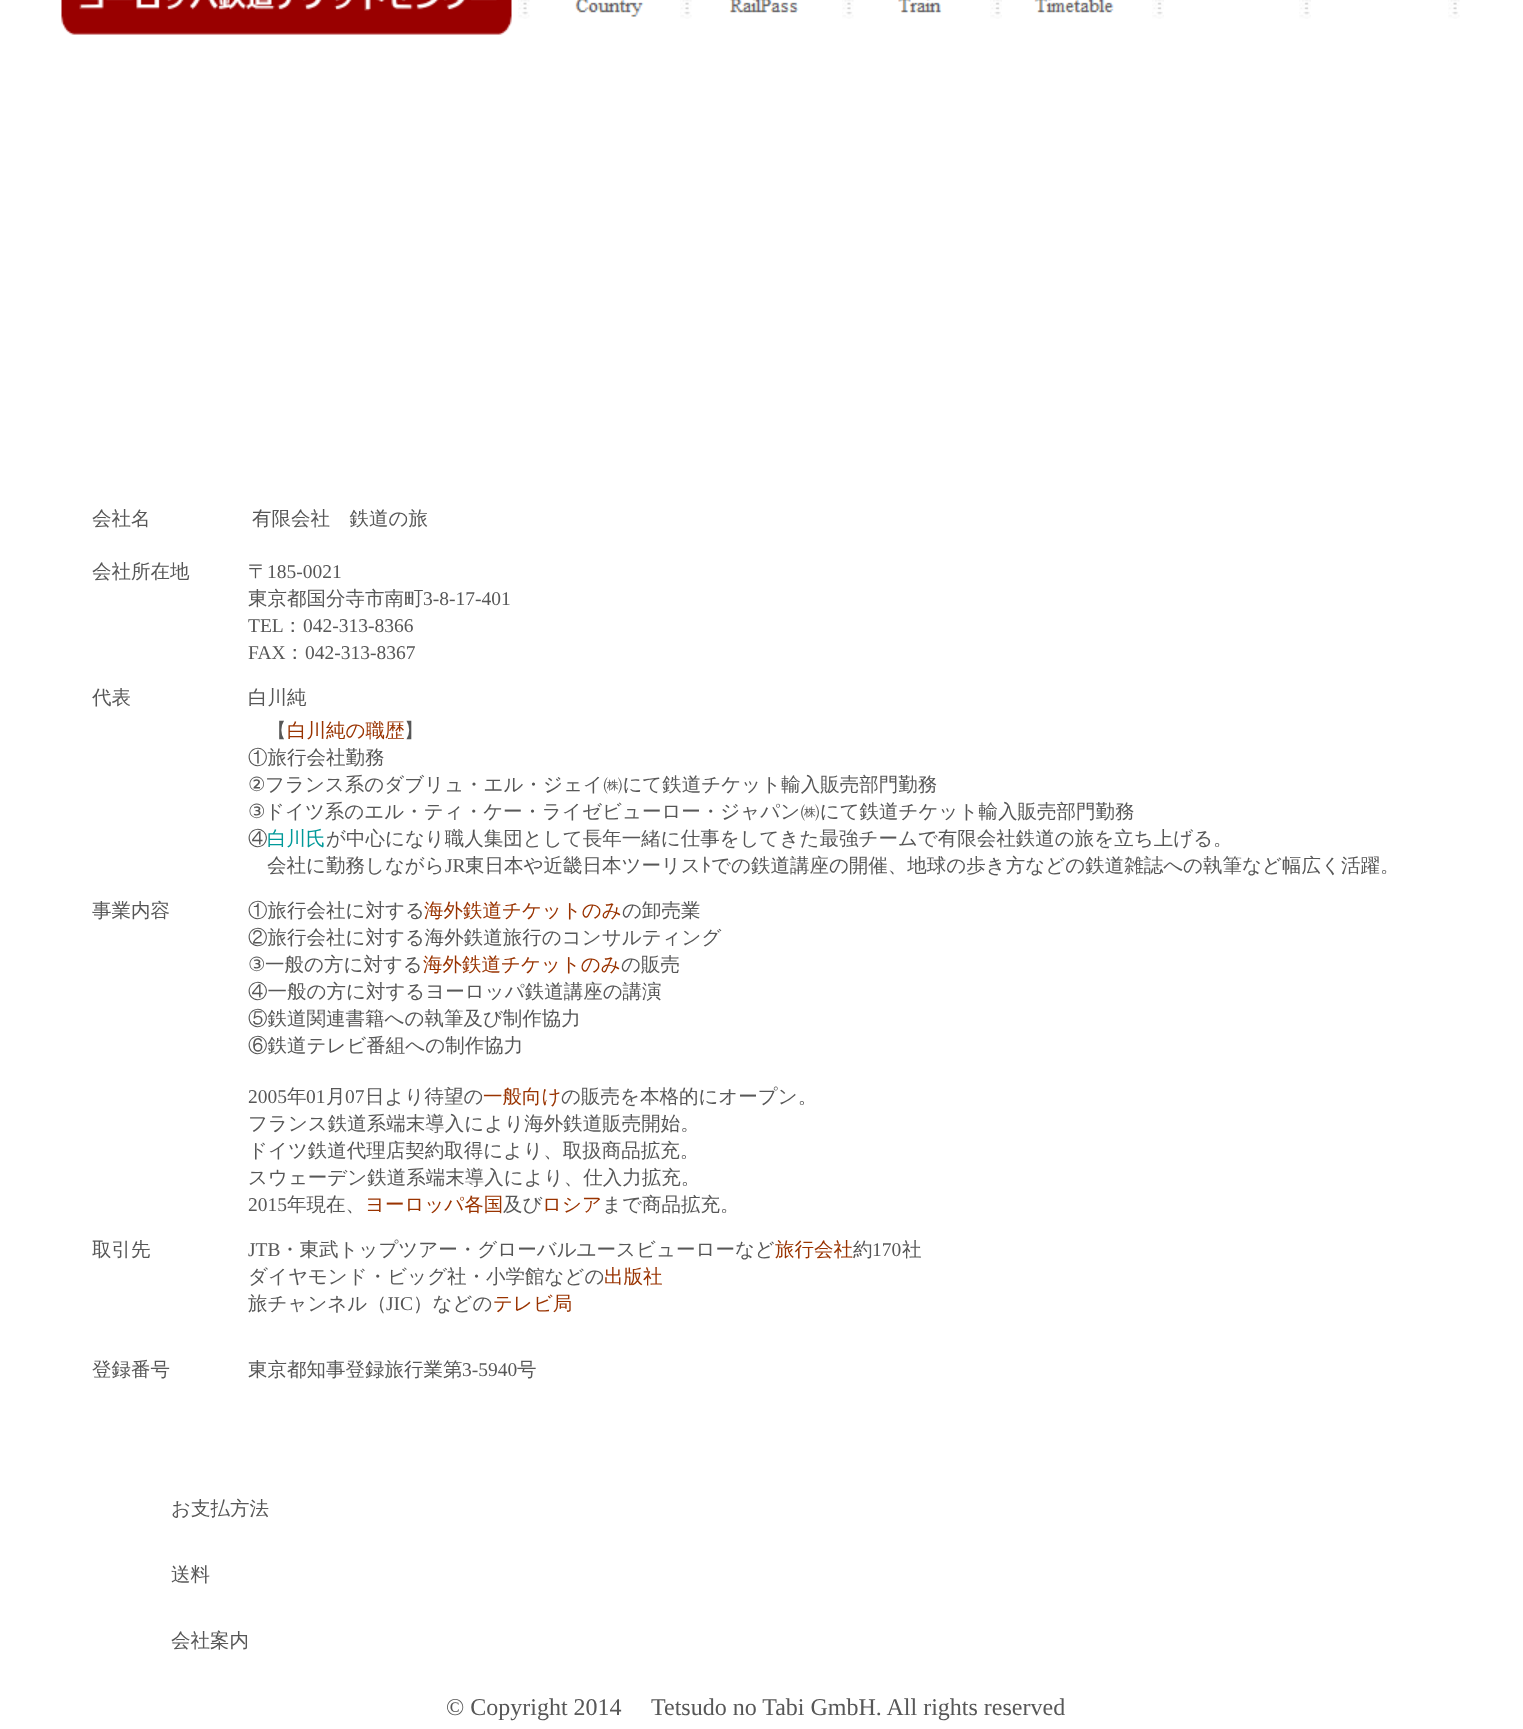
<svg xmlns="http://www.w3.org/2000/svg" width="1523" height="1729">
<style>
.a{font:500 19.5px WenQuanYi Zen Hei;fill:#575757}
.b{font:19.5px Liberation Serif;fill:#575757}
.c{font:500 19.5px WenQuanYi Zen Hei;fill:#930}
.d{font:19.5px DejaVu Sans;fill:#575757}
.e{font:500 19.5px WenQuanYi Zen Hei;fill:#099}
.f{font:19.5px IPAGothic;fill:#575757}
.g{font:24px Liberation Serif;fill:#575757}
</style>
<rect width="100%" height="100%" fill="#fff"/>
<image href="1.png" x="61" y="0" width="451" height="35"/>
<image href="2.png" x="518" y="0" width="12" height="19"/>
<image href="3.png" x="575" y="0" width="69" height="17"/>
<image href="4.png" x="680" y="0" width="12" height="19"/>
<image href="5.png" x="729" y="0" width="70" height="13"/>
<image href="6.png" x="842" y="0" width="12" height="19"/>
<image href="7.png" x="898" y="0" width="45" height="13"/>
<image href="8.png" x="990" y="0" width="12" height="19"/>
<image href="9.png" x="1034" y="0" width="80" height="13"/>
<image href="10.png" x="1152" y="0" width="12" height="19"/>
<image href="8.png" x="1299" y="0" width="12" height="19"/>
<image href="4.png" x="1448" y="0" width="12" height="19"/>
<text class="a" x="92" y="525">会社名</text>
<text class="a" x="252" y="525">有限会社　鉄道の旅</text>
<text class="a" x="92" y="578">会社所在地</text>
<text class="a" x="248" y="578">〒</text>
<text class="b" x="267" y="578">185-0021</text>
<text class="a" x="248" y="605">東京都国分寺市南町</text>
<text class="b" x="423" y="605">3-8-17-401</text>
<text class="b" x="248" y="632">TEL</text>
<text class="a" x="283" y="632">：</text>
<text class="b" x="303" y="632">042-313-8366</text>
<text class="b" x="248" y="659">FAX</text>
<text class="a" x="285" y="659">：</text>
<text class="b" x="305" y="659">042-313-8367</text>
<text class="a" x="92" y="704">代表</text>
<text class="a" x="248" y="704">白川純</text>
<text class="a" x="267" y="737">【</text>
<text class="c" x="287" y="737">白川純の職歴</text>
<text class="a" x="404" y="737">】</text>
<text class="a" x="248" y="764">①旅行会社勤務</text>
<text class="d" x="248" y="791">②</text>
<text class="a" x="265" y="791">フランス系のダブリュ・エル・ジェイ㈱にて鉄道チケット輸入販売部門勤務</text>
<text class="d" x="248" y="818">③</text>
<text class="a" x="265" y="818">ドイツ系のエル・ティ・ケー・ライゼビューロー・ジャパン㈱にて鉄道チケット輸入販売部門勤務</text>
<text class="a" x="248" y="845">④</text>
<text class="e" x="267" y="845">白川氏</text>
<text class="a" x="326" y="845">が中心になり職人集団として長年一緒に仕事をしてきた最強チームで有限会社鉄道の旅を立ち上げる。</text>
<text class="a" x="267" y="872">会社に勤務しながら</text>
<text class="b" x="445" y="872">JR</text>
<text class="a" x="465" y="872">東日本や近畿日本ツーリス</text>
<text class="f" x="701" y="872">ﾄ</text>
<text class="a" x="711" y="872">での鉄道講座の開催、地球の歩き方などの鉄道雑誌への執筆など幅広く活躍。</text>
<text class="a" x="92" y="917">事業内容</text>
<text class="a" x="248" y="917">①旅行会社に対する</text>
<text class="c" x="424" y="917">海外鉄道チケットのみ</text>
<text class="a" x="622" y="917">の卸売業</text>
<text class="a" x="248" y="944">②旅行会社に対する海外鉄道旅行のコンサルティング</text>
<text class="d" x="248" y="971">③</text>
<text class="a" x="265" y="971">一般の方に対する</text>
<text class="c" x="423" y="971">海外鉄道チケットのみ</text>
<text class="a" x="621" y="971">の販売</text>
<text class="a" x="248" y="998">④一般の方に対するヨーロッパ鉄道講座の講演</text>
<text class="a" x="248" y="1025">⑤鉄道関連書籍への執筆及び制作協力</text>
<text class="a" x="248" y="1052">⑥鉄道テレビ番組への制作協力</text>
<text class="b" x="248" y="1103">2005</text>
<text class="a" x="287" y="1103">年</text>
<text class="b" x="306" y="1103">01</text>
<text class="a" x="326" y="1103">月</text>
<text class="b" x="345" y="1103">07</text>
<text class="a" x="365" y="1103">日より待望の</text>
<text class="c" x="483" y="1103">一般向け</text>
<text class="a" x="561" y="1103">の販売を本格的にオープン。</text>
<text class="a" x="248" y="1130">フランス鉄道系端末導入により海外鉄道販売開始。</text>
<text class="a" x="248" y="1157">ドイツ鉄道代理店契約取得により、取扱商品拡充。</text>
<text class="a" x="248" y="1184">スウェーデン鉄道系端末導入により、仕入力拡充。</text>
<text class="b" x="248" y="1211">2015</text>
<text class="a" x="287" y="1211">年現在、</text>
<text class="c" x="365" y="1211">ヨーロッパ各国</text>
<text class="a" x="503" y="1211">及び</text>
<text class="c" x="542" y="1211">ロシア</text>
<text class="a" x="602" y="1211">まで商品拡充。</text>
<text class="a" x="92" y="1256">取引先</text>
<text class="b" x="248" y="1256">JTB</text>
<text class="a" x="280" y="1256">・東武トップツアー・グローバルユースビューローなど</text>
<text class="c" x="775" y="1256">旅行会社</text>
<text class="a" x="853" y="1256">約</text>
<text class="b" x="872" y="1256">170</text>
<text class="a" x="902" y="1256">社</text>
<text class="a" x="248" y="1283">ダイヤモンド・ビッグ社・小学館などの</text>
<text class="c" x="604" y="1283">出版社</text>
<text class="a" x="248" y="1310">旅チャンネル（</text>
<text class="b" x="386" y="1310">JIC</text>
<text class="a" x="413" y="1310">）などの</text>
<text class="c" x="493" y="1310">テレビ局</text>
<text class="a" x="92" y="1376">登録番号</text>
<text class="a" x="248" y="1376">東京都知事登録旅行業第</text>
<text class="b" x="462" y="1376">3-5940</text>
<text class="a" x="517" y="1376">号</text>
<text class="a" x="171" y="1515">お支払方法</text>
<text class="a" x="171" y="1581">送料</text>
<text class="a" x="171" y="1647">会社案内</text>
<text class="g" x="446" y="1715">© Copyright 2014</text>
<text class="g" x="651" y="1715">Tetsudo no Tabi GmbH. All rights reserved</text>
</svg>
